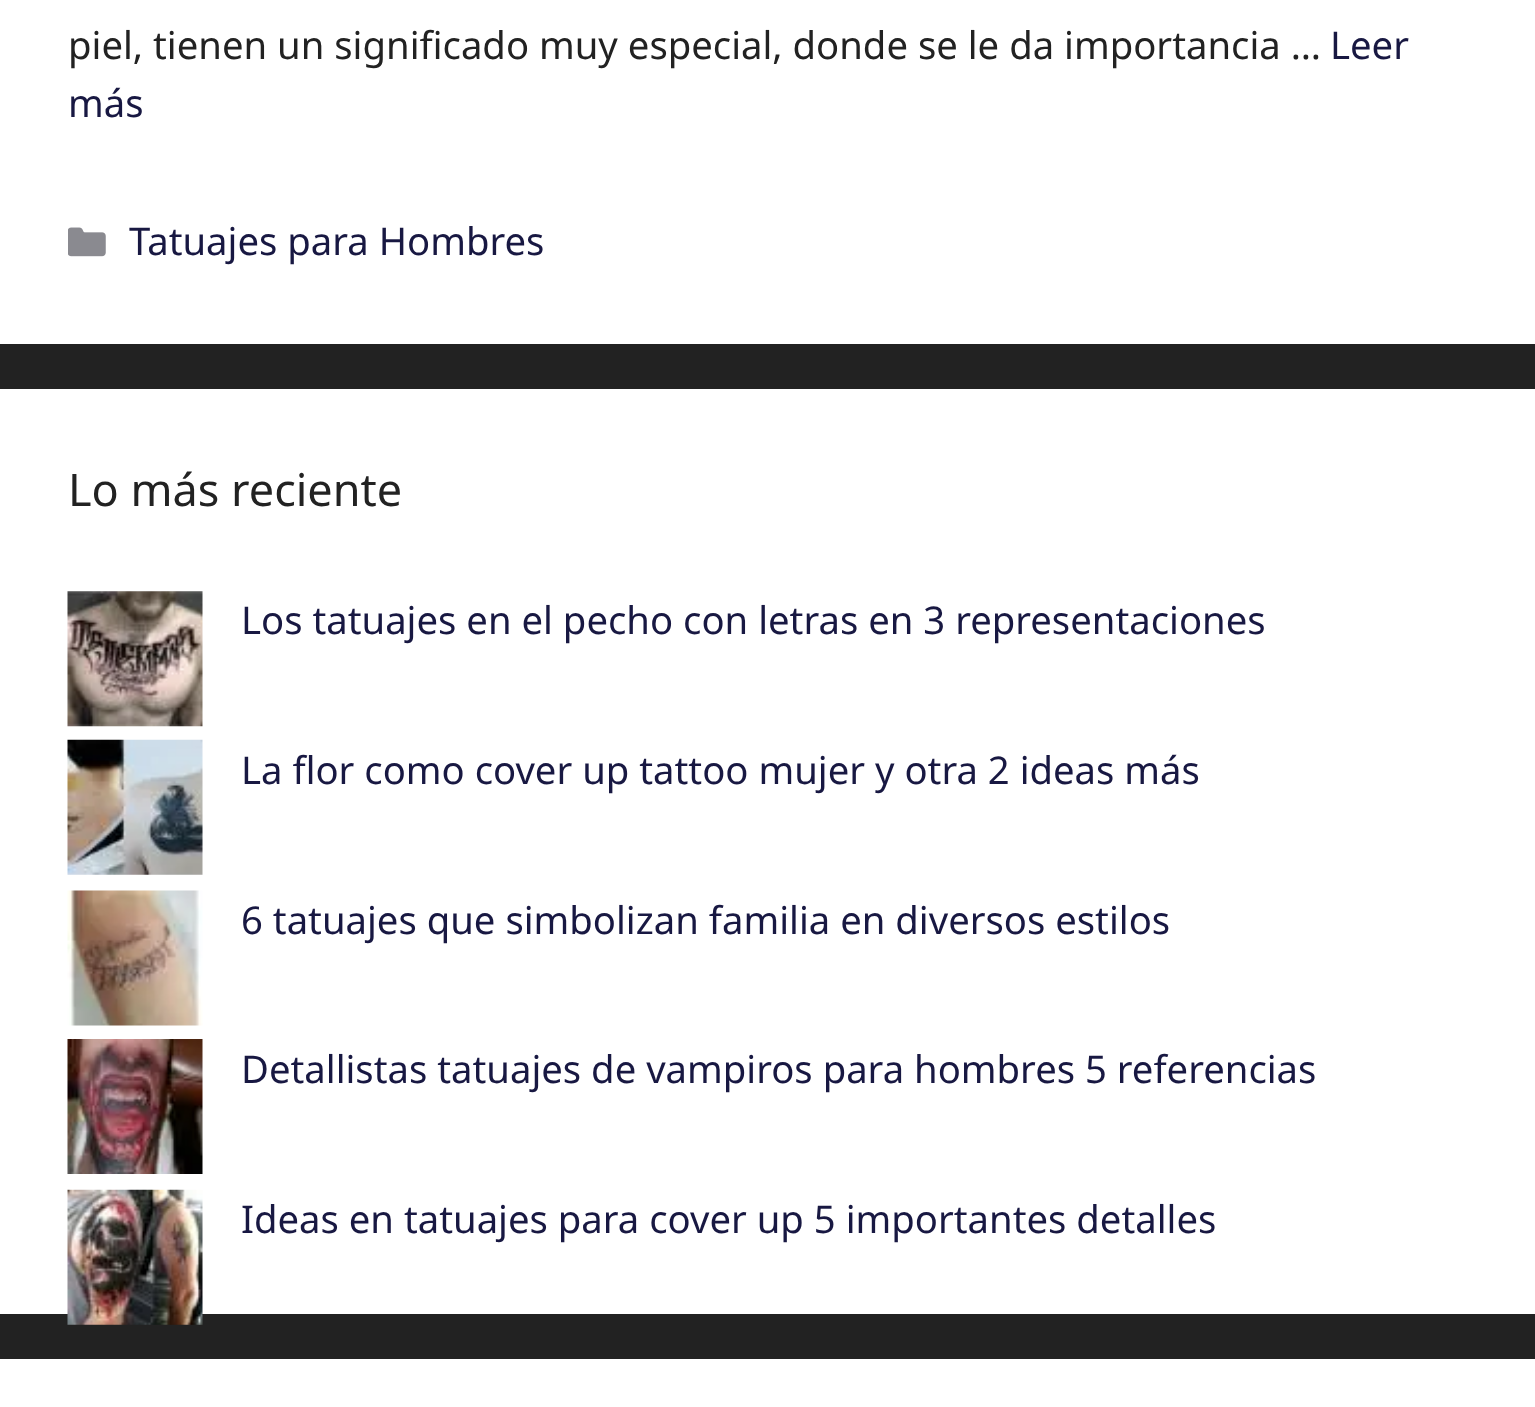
<svg xmlns="http://www.w3.org/2000/svg" width="1535" height="1407">
<style>
.a{font:38.25px Noto Sans;fill:#222}
.b{font:38.25px Noto Sans;fill:#181842}
.c{font:45px Noto Sans;fill:#222}
</style>
<rect width="100%" height="100%" fill="#222"/>
<path fill="#fff" d="M0 0h1535v344H0z"/>
<image href="1.png" x="68" y="227" width="38" height="30"/>
<path fill="#fff" d="M0 389h1535v925H0z"/>
<image href="2.png" x="67" y="591" width="136" height="136"/>
<image href="3.png" x="67" y="739" width="136" height="136"/>
<image href="4.png" x="67" y="890" width="136" height="136"/>
<image href="5.png" x="67" y="1039" width="136" height="135"/>
<image href="6.png" x="67" y="1189" width="136" height="136"/>
<path fill="#fff" d="M0 1359h1535v48H0z"/>
<text class="a" x="68" y="59">piel, tienen un significado muy especial, donde se le da importancia …</text>
<text class="b" x="1330" y="59">Leer</text>
<text class="b" x="68" y="117">más</text>
<text class="b" x="129" y="255">Tatuajes para Hombres</text>
<text class="c" x="68" y="506">Lo más reciente</text>
<text class="b" x="241" y="634">Los tatuajes en el pecho con letras en 3 representaciones</text>
<text class="b" x="241" y="784">La flor como cover up tattoo mujer y otra 2 ideas más</text>
<text class="b" x="241" y="934">6 tatuajes que simbolizan familia en diversos estilos</text>
<text class="b" x="241" y="1083">Detallistas tatuajes de vampiros para hombres 5 referencias</text>
<text class="b" x="241" y="1233">Ideas en tatuajes para cover up 5 importantes detalles</text>
</svg>
